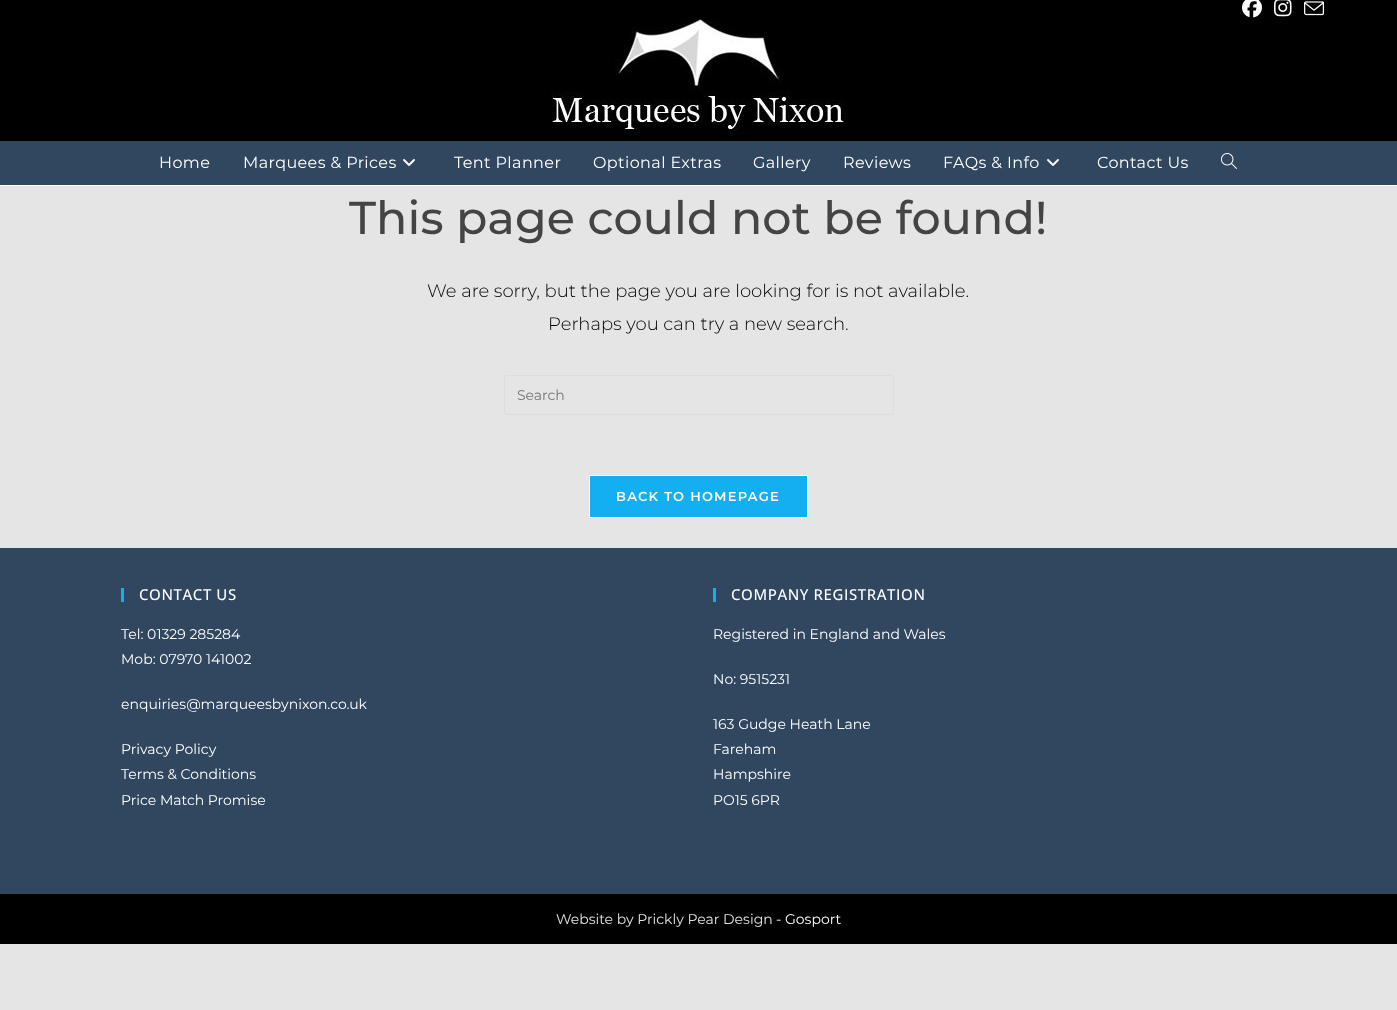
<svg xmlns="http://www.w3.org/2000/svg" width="1397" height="1010">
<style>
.a{font:16px Montserrat;letter-spacing:0.4px;fill:#fff}
.b{font:500 46px Montserrat;letter-spacing:0.1px;fill:#444}
.c{font:300 18px Montserrat;fill:#000}
.d{font:14px Montserrat;fill:#757575}
.e{font:600 13px Montserrat;letter-spacing:1.25px;fill:#fff}
.f{font:500 15px Open Sans;letter-spacing:0.6px;fill:#fff}
.g{font:14px Montserrat;fill:#fff}
.h{font:14px Montserrat;fill:#e2e2e2}
</style>
<rect width="100%" height="100%" fill="#e5e5e5"/>
<path fill="#000" d="M0 0h1397v141H0z"/>
<image href="1.png" x="1242" y="0" width="20" height="18"/>
<image href="2.png" x="1274" y="0" width="18" height="17"/>
<image href="3.png" x="1304" y="1" width="20" height="15"/>
<path fill="#fff" d="M0 185h1397v1H0z"/>
<image href="4.png" x="551" y="19" width="295" height="110"/>
<path fill="#31465f" d="M0 141h1397v44H0z"/>
<image href="5.png" x="403" y="159" width="12" height="7"/>
<image href="5.png" x="1047" y="159" width="12" height="7"/>
<image href="6.png" x="1221" y="153" width="16" height="16"/>
<rect fill="none" stroke="#ddd" x="504.5" y="375.5" width="389" height="39" rx="2.5"/>
<path fill="#13aff0" stroke="#fff" d="M589.5 475.5h218v42H589.5z"/>
<path fill="#31465f" d="M0 548h1397v346H0z"/>
<path fill="#13aff0" d="M121 588h3v14H121z"/>
<path fill="#13aff0" d="M713 588h3v14H713z"/>
<path fill="#000" d="M0 894h1397v50H0z"/>
<text class="a" x="159" y="168">Home</text>
<text class="a" x="243" y="168">Marquees &amp; Prices</text>
<text class="a" x="454" y="168">Tent Planner</text>
<text class="a" x="593" y="168">Optional Extras</text>
<text class="a" x="753" y="168">Gallery</text>
<text class="a" x="843" y="168">Reviews</text>
<text class="a" x="943" y="168">FAQs &amp; Info</text>
<text class="a" x="1097" y="168">Contact Us</text>
<text class="b" x="349" y="234">This page could not be found!</text>
<text class="c" x="427" y="297">We are sorry, but the page you are looking for is not available.</text>
<text class="c" x="548" y="330">Perhaps you can try a new search.</text>
<text class="d" x="517" y="400">Search</text>
<text class="e" x="616" y="501">BACK TO HOMEPAGE</text>
<text class="f" x="139" y="600">CONTACT US</text>
<text class="g" x="121" y="639">Tel: 01329 285284</text>
<text class="g" x="121" y="664">Mob: 07970 141002</text>
<text class="g" x="121" y="709">enquiries@marqueesbynixon.co.uk</text>
<text class="g" x="121" y="754">Privacy Policy</text>
<text class="g" x="121" y="779">Terms &amp; Conditions</text>
<text class="g" x="121" y="805">Price Match Promise</text>
<text class="f" x="731" y="600">COMPANY REGISTRATION</text>
<text class="g" x="713" y="639">Registered in England and Wales</text>
<text class="g" x="713" y="684">No: 9515231</text>
<text class="g" x="713" y="729">163 Gudge Heath Lane</text>
<text class="g" x="713" y="754">Fareham</text>
<text class="g" x="713" y="779">Hampshire</text>
<text class="g" x="713" y="805">PO15 6PR</text>
<text class="h" x="556" y="924">Website by Prickly Pear Design</text>
<text class="g" x="776" y="924">- Gosport</text>
</svg>
